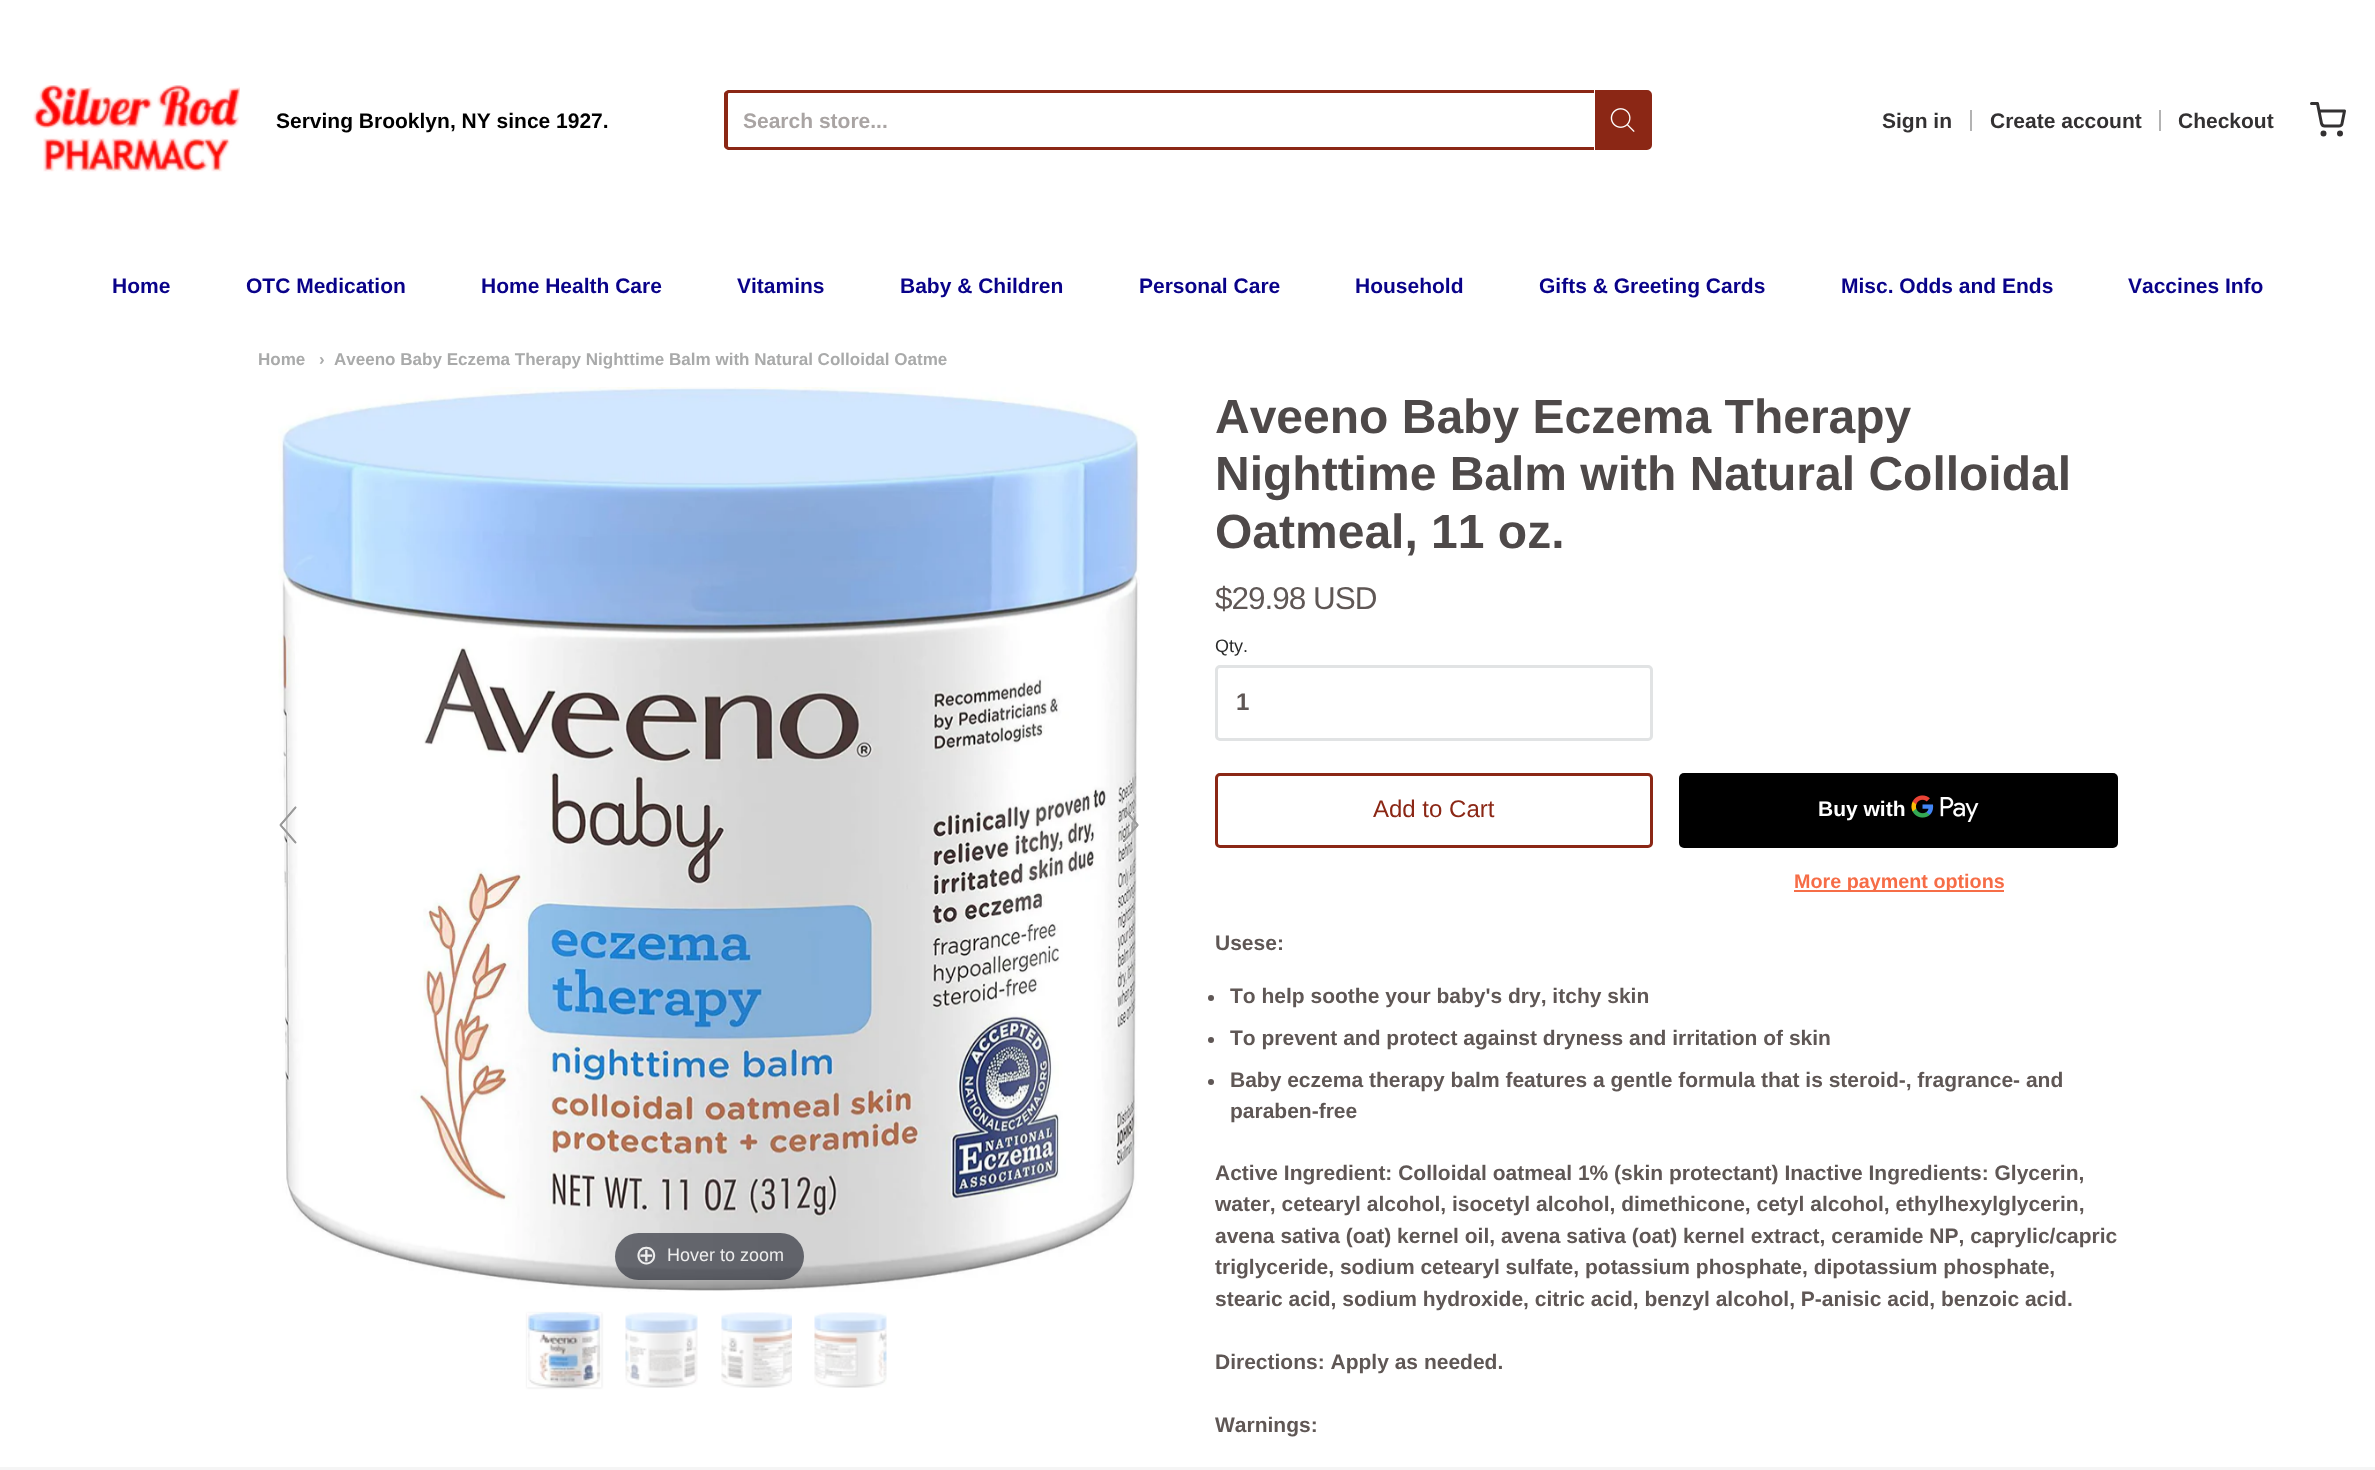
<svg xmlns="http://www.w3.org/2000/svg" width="2375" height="1470">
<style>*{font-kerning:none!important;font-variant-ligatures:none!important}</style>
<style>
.a{font:bold 21px Liberation Sans;fill:#000}
.b{font:bold 21px Liberation Sans;fill:#a9a4a3}
.c{font:bold 21px Liberation Sans;fill:#333132}
.d{font:bold 21px Liberation Sans;fill:#090289}
.e{font:bold 17.05px Liberation Sans;fill:#a9aaaa}
.f{font:27px DejaVu Sans;fill:#eee}
.g{font:18px Liberation Sans;fill:#eee}
.h{font:bold 48px Liberation Sans;fill:#4e4949}
.i{font:31.5px Liberation Sans;letter-spacing:-1px;fill:#5f5755}
.j{font:18px Liberation Sans;fill:#2a2b2b}
.k{font:bold 24px Liberation Sans;fill:#5f5755}
.l{font:24px Liberation Sans;fill:#8b2715}
.m{font:bold 21px Liberation Sans;fill:#fff}
.n{font:bold 19.75px Liberation Sans;fill:#f66d47}
.o{font:bold 21px Liberation Sans;fill:#5f5755}
</style>
<rect width="100%" height="100%" fill="#fff"/>
<image href="1.png" x="33" y="85" width="207" height="87"/>
<path fill="#8b2715" fill-rule="evenodd" d="M729 90h865v60h-865c-2 0-5-2-5-4v-52c0-2 3-4 5-4zm0 3h865v54h-865c-1 0-1-1-1-1v-52c0 0 0-1 1-1z"/>
<path fill="#8b2715" stroke="#8b2715" stroke-width="3" d="M1596.5 91.5h50.5c2 0 3.5 1.5 3.5 3.5v50c0 2-1.5 3.5-3.5 3.5h-50.5z"/>
<image href="2.png" x="1610" y="108" width="25" height="24"/>
<path fill="#b3b3b3" d="M1970 110h2v21H1970z"/>
<path fill="#b3b3b3" d="M2159 110h2v21H2159z"/>
<path fill="none" stroke="#333132" stroke-width="3" stroke-linecap="round" stroke-linejoin="round" d="M2311.5 103.5h6l4 20c.5 1.5 1.5 2.5 3 2.5h14.5c1.5 0 3-1 3-2.5l2.5-12.5h-25.5"/>
<circle fill="none" stroke="#333132" stroke-width="3" cx="2323.5" cy="133.5" r="1.5"/>
<circle fill="none" stroke="#333132" stroke-width="3" cx="2340" cy="133.5" r="1.5"/>
<image href="5.png" x="278" y="387" width="862" height="905"/>
<image href="3.png" x="279" y="806" width="18" height="38"/>
<image href="4.png" x="1123" y="808" width="16" height="34"/>
<rect fill="#31333db3" x="615" y="1233" width="189" height="47" rx="23.5"/>
<path fill="#0000001a" filter="blur(1px)" d="M527 1313h75v75H527z"/>
<image href="6.png" x="527" y="1312" width="75" height="76"/>
<image href="7.png" x="625" y="1312" width="73" height="76"/>
<image href="8.png" x="721" y="1312" width="71" height="76"/>
<image href="9.png" x="814" y="1312" width="73" height="76"/>
<rect fill="none" stroke="#e1e3e4" stroke-width="3" x="1216.5" y="666.5" width="435" height="73" rx="3.5"/>
<rect fill="none" stroke="#8b2715" stroke-width="3" x="1216.5" y="774.5" width="435" height="72" rx="3.5"/>
<rect fill="#000" x="1679" y="773" width="439" height="75" rx="5"/>
<image href="10.png" x="1911" y="795" width="68" height="27"/>
<path fill="#f66d47" d="M1794 890h210v2H1794z"/>
<circle fill="#5f5755" cx="1211" cy="998" r="3"/>
<circle fill="#5f5755" cx="1211" cy="1040" r="3"/>
<circle fill="#5f5755" cx="1211" cy="1082" r="3"/>
<path fill="#f5f5f5" d="M0 1467h2375v3H0z"/>
<text class="a" x="276" y="128">Serving Brooklyn, NY since 1927.</text>
<text class="b" x="743" y="128">Search store...</text>
<text class="c" x="1882" y="128">Sign in</text>
<text class="c" x="1990" y="128">Create account</text>
<text class="c" x="2178" y="128">Checkout</text>
<text class="d" x="112" y="293">Home</text>
<text class="d" x="246" y="293">OTC Medication</text>
<text class="d" x="481" y="293">Home Health Care</text>
<text class="d" x="737" y="293">Vitamins</text>
<text class="d" x="900" y="293">Baby &amp; Children</text>
<text class="d" x="1139" y="293">Personal Care</text>
<text class="d" x="1355" y="293">Household</text>
<text class="d" x="1539" y="293">Gifts &amp; Greeting Cards</text>
<text class="d" x="1841" y="293">Misc. Odds and Ends</text>
<text class="d" x="2128" y="293">Vaccines Info</text>
<text class="e" x="258" y="365">Home</text>
<text class="e" x="319" y="365">›</text>
<text class="e" x="334" y="365">Aveeno Baby Eczema Therapy Nighttime Balm with Natural Colloidal Oatme</text>
<text class="f" x="635" y="1264">⊕</text>
<text class="g" x="667" y="1261">Hover to zoom</text>
<text class="h" x="1215" y="433">Aveeno Baby Eczema Therapy</text>
<text class="h" x="1215" y="490">Nighttime Balm with Natural Colloidal</text>
<text class="h" x="1215" y="548">Oatmeal, 11 oz.</text>
<text class="i" x="1215" y="609">$29.98 USD</text>
<text class="j" x="1215" y="652">Qty.</text>
<text class="k" x="1236" y="710">1</text>
<text class="l" x="1373" y="817">Add to Cart</text>
<text class="m" x="1818" y="816">Buy with</text>
<text class="n" x="1794" y="888">More payment options</text>
<text class="o" x="1215" y="950">Usese:</text>
<text class="o" x="1230" y="1003">To help soothe your baby's dry, itchy skin</text>
<text class="o" x="1230" y="1045">To prevent and protect against dryness and irritation of skin</text>
<text class="o" x="1230" y="1087">Baby eczema therapy balm features a gentle formula that is steroid-, fragrance- and</text>
<text class="o" x="1230" y="1118">paraben-free</text>
<text class="o" x="1215" y="1180">Active Ingredient: Colloidal oatmeal 1% (skin protectant) Inactive Ingredients: Glycerin,</text>
<text class="o" x="1215" y="1211">water, cetearyl alcohol, isocetyl alcohol, dimethicone, cetyl alcohol, ethylhexylglycerin,</text>
<text class="o" x="1215" y="1243">avena sativa (oat) kernel oil, avena sativa (oat) kernel extract, ceramide NP, caprylic/capric</text>
<text class="o" x="1215" y="1274">triglyceride, sodium cetearyl sulfate, potassium phosphate, dipotassium phosphate,</text>
<text class="o" x="1215" y="1306">stearic acid, sodium hydroxide, citric acid, benzyl alcohol, P-anisic acid, benzoic acid.</text>
<text class="o" x="1215" y="1369">Directions: Apply as needed.</text>
<text class="o" x="1215" y="1432">Warnings:</text>
</svg>
